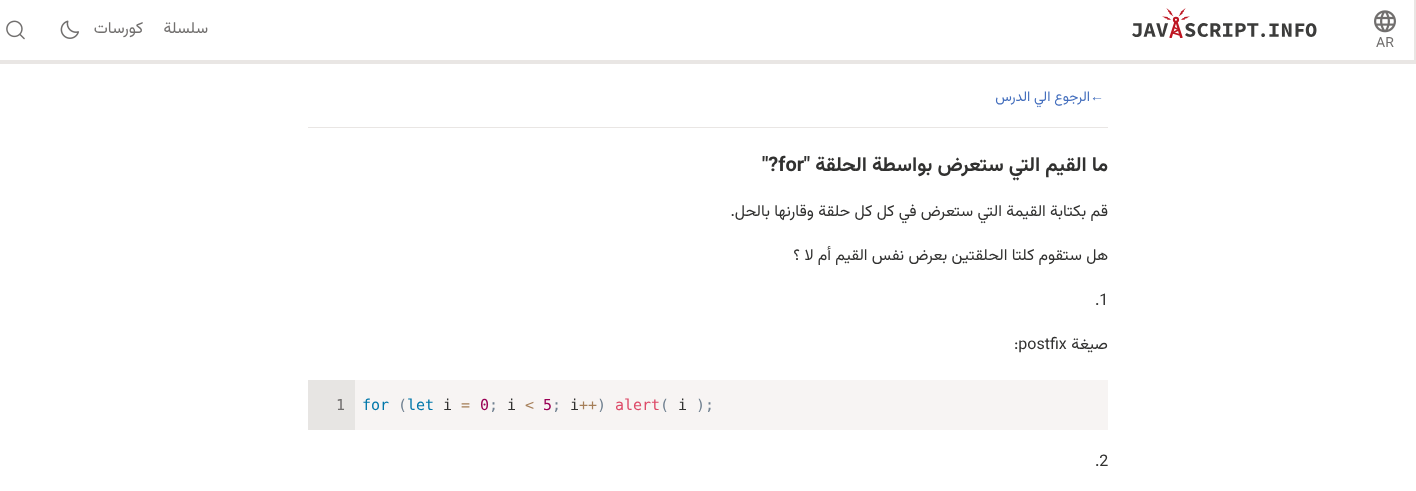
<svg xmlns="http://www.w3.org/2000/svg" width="1416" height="491">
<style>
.a{font:16px Vazirmatn;direction:rtl;fill:#716f6e}
.b{font:14px Vazirmatn;fill:#716f6e}
.c{font:14px Liberation Sans;fill:#436ebd}
.d{font:14px Vazirmatn;direction:rtl;fill:#436ebd}
.e{font:bold 20px Vazirmatn;direction:rtl;fill:#313130}
.f{font:bold 20px Vazirmatn;fill:#313130}
.g{font:16px Vazirmatn;direction:rtl;fill:#313130}
.h{font:16px Vazirmatn;fill:#313130}
.i{font:15px DejaVu Sans Mono;fill:#708090}
.j{font:15px DejaVu Sans Mono;fill:#313130}
.k{font:15px DejaVu Sans Mono;fill:#dd4a68}
.l{font:15px DejaVu Sans Mono;fill:#a67f59}
.m{font:15px DejaVu Sans Mono;fill:#905}
.n{font:15px DejaVu Sans Mono;fill:#07a}
.o{font:15px DejaVu Sans Mono;letter-spacing:-1px;fill:#716f6e}
</style>
<rect width="100%" height="100%" fill="#fff"/>
<path fill="#e9e6e4" d="M0 60h1416v4H0z"/>
<image href="1.png" x="1132" y="8" width="185" height="30"/>
<image href="2.png" x="60" y="20" width="19" height="19"/>
<image href="3.png" x="6" y="20" width="19" height="20"/>
<path fill="#e9e6e4" d="M1414 0h2v60H1414z"/>
<image href="4.png" x="1374" y="10" width="22" height="23"/>
<path fill="#e9e6e4" d="M308 127h800v1H308z"/>
<path fill="#f7f4f3" d="M355 380h753v50H355z"/>
<path fill="#e7e5e3" d="M308 380h47v50H308z"/>
<text class="a" x="208" y="33">سلسلة</text>
<text class="a" x="143" y="33">كورسات</text>
<text class="b" x="1376" y="47">AR</text>
<text class="c" x="1090" y="101">←</text>
<text class="d" x="1090" y="101">الرجوع الي الدرس</text>
<text class="e" x="1108" y="171">ما القيم التي ستعرض بواسطة الحلقة "</text>
<text class="f" x="762" y="171">"?for</text>
<text class="g" x="1108" y="216">قم بكتابة القيمة التي ستعرض في كل كل حلقة وقارنها بالحل.</text>
<text class="g" x="1108" y="260">هل ستقوم كلتا الحلقتين بعرض نفس القيم أم لا ؟</text>
<text class="h" x="1095" y="305">.1</text>
<text class="g" x="1108" y="349">صيغة</text>
<text class="h" x="1014" y="349">:postfix</text>
<text class="i" x="696" y="410">);</text>
<text class="j" x="678" y="410">i</text>
<text class="i" x="660" y="410">(</text>
<text class="k" x="615" y="410">alert</text>
<text class="i" x="597" y="410">)</text>
<text class="l" x="579" y="410">++</text>
<text class="j" x="570" y="410">i</text>
<text class="i" x="552" y="410">;</text>
<text class="m" x="543" y="410">5</text>
<text class="l" x="525" y="410">&lt;</text>
<text class="j" x="507" y="410">i</text>
<text class="i" x="489" y="410">;</text>
<text class="m" x="480" y="410">0</text>
<text class="l" x="461" y="410">=</text>
<text class="j" x="443" y="410">i</text>
<text class="n" x="407" y="410">let</text>
<text class="i" x="398" y="410">(</text>
<text class="n" x="362" y="410">for</text>
<text class="o" x="336" y="410">1</text>
<text class="h" x="1095" y="466">.2</text>
</svg>
